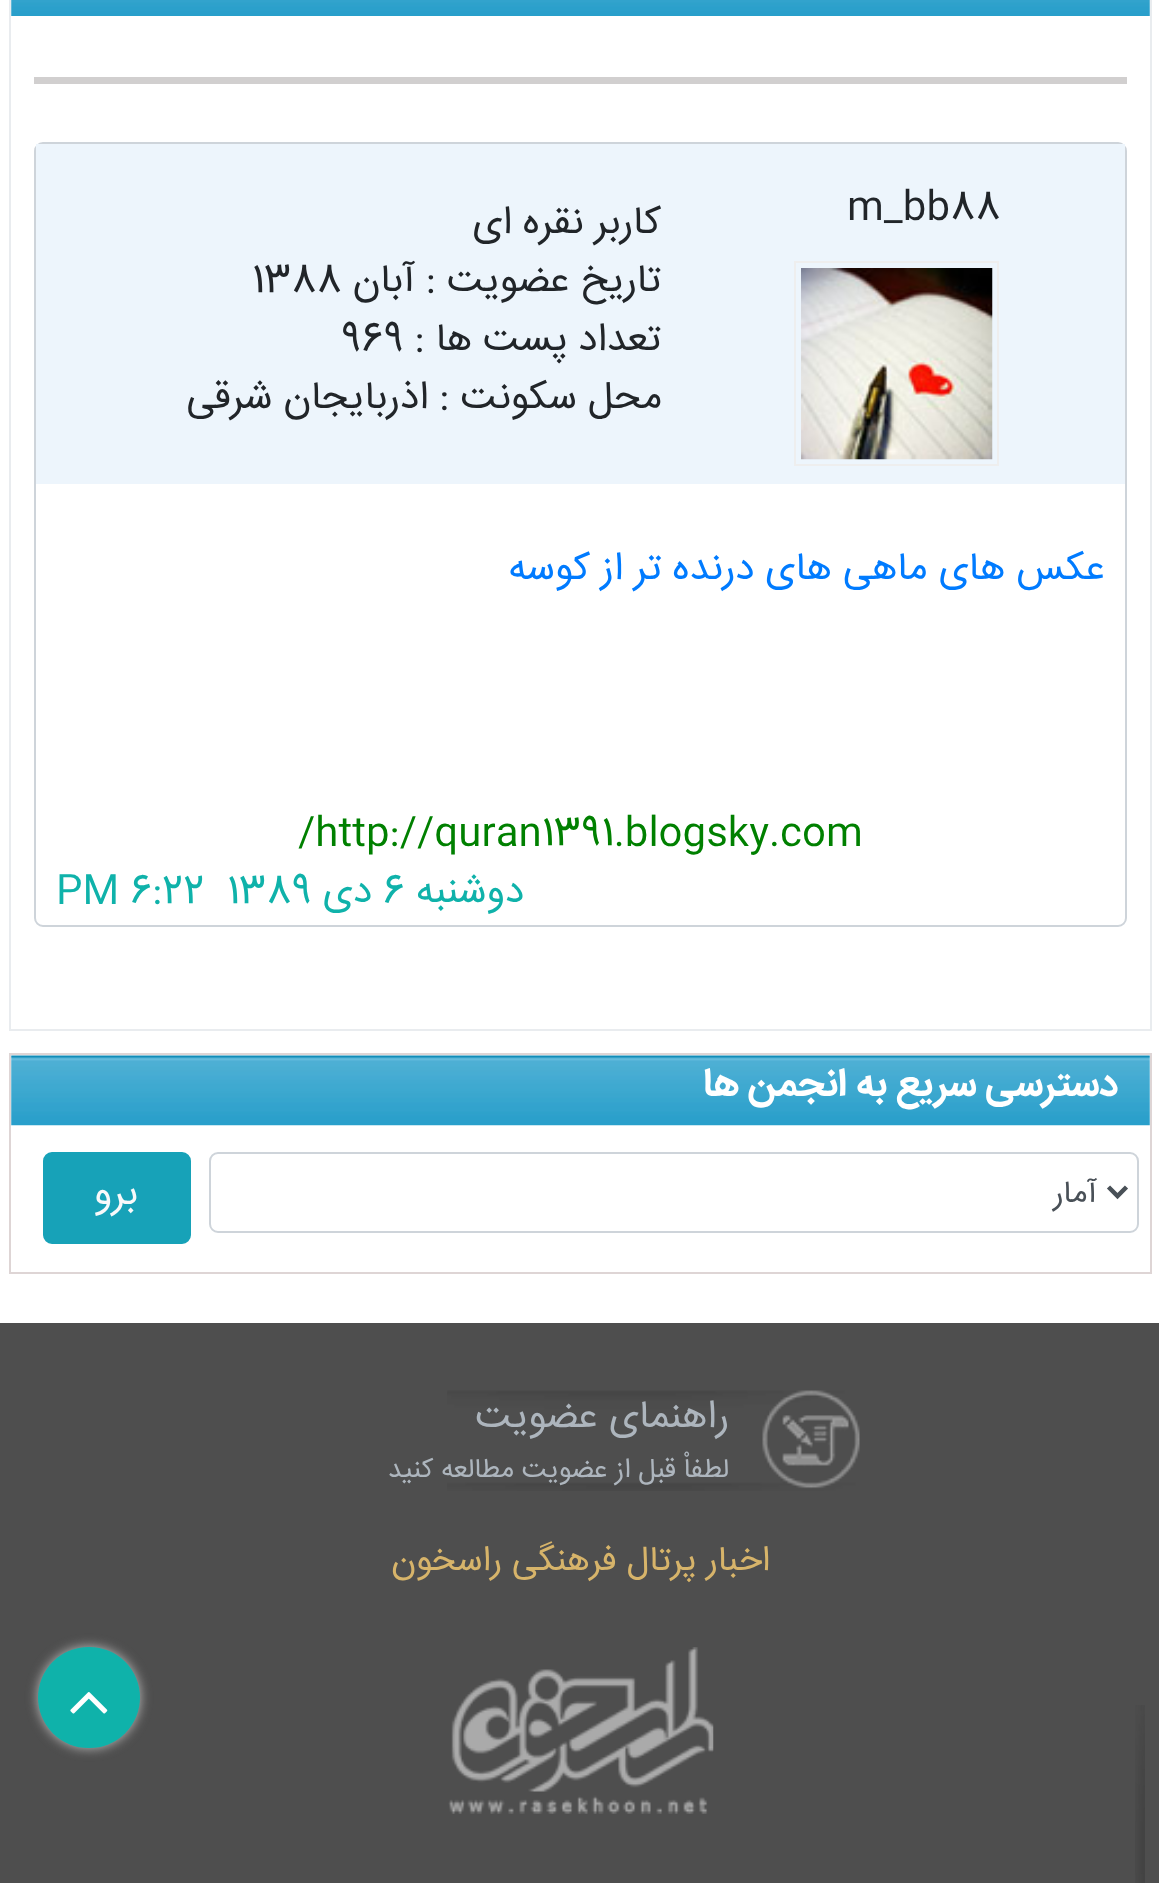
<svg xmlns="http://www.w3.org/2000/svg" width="1159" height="1883">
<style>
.a{font:39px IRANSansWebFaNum;fill:#212529}
.b{font:39px IRANSansWebFaNum;direction:rtl;fill:#212529}
.c{font:39px IRANSansWebFaNum;direction:rtl;fill:#007bff}
.d{font:39px IRANSansWebFaNum;fill:#008000}
.e{font:39px IRANSansWebFaNum;direction:rtl;fill:#0fb2aa}
.f{font:39px IRANSansWebFaNum;fill:#0fb2aa}
.g{font:bold 39px IRANSansWebFaNum;direction:rtl;fill:#fff}
.h{font:31px IRANSansWebFaNum;direction:rtl;fill:#495057}
.i{font:39px IRANSansWebFaNum;direction:rtl;fill:#f8f9fa}
.j{font:39px IRANSansWebFaNum;direction:rtl;fill:#adb5bd}
.k{font:27.25px IRANSansWebFaNum;direction:rtl;fill:#adb5bd}
.l{font:35.1px IRANSansWebFaNum;direction:rtl;fill:#d7b46a}
</style>
<rect width="100%" height="100%" fill="#fff"/>
<path fill="none" stroke="#e9ecef" stroke-width="2" d="M10 -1h1141v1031H10z"/>
<image href="1.png" x="11" y="0" width="1139" height="16"/>
<path fill="#d1cfcf" d="M34 77h1093v7H34z"/>
<rect fill="none" stroke="#ced4da" stroke-width="2" x="35" y="143" width="1091" height="783" rx="8"/>
<path fill="#edf5fc" d="M36 144h1089v340H36z"/>
<path fill="none" stroke="#eee" stroke-width="2" d="M795 262h203v203H795z"/>
<image href="2.png" x="801" y="268" width="192" height="192"/>
<path fill="none" stroke="#ded5d5" stroke-width="2" d="M10 1054h1141v219H10z"/>
<image href="3.png" x="11" y="1055" width="1139" height="71"/>
<rect fill="none" stroke="#ced4da" stroke-width="2" x="210" y="1153" width="928" height="79" rx="8"/>
<path fill="none" stroke="#495057" stroke-width="4.5" d="M1108.5 1187l9 9l9-9"/>
<rect fill="#17a2b8" stroke="#17a2b8" stroke-width="2" x="44" y="1153" width="146" height="90" rx="8"/>
<path fill="#4e4e4e" d="M0 1323h1159v560H0z"/>
<image href="4.png" x="447" y="1390" width="413" height="101"/>
<image href="5.png" x="1135" y="1705" width="10" height="178"/>
<image href="6.png" x="448" y="1647" width="266" height="167"/>
<rect fill="#bbb" filter="blur(6px)" x="38" y="1647" width="102" height="101" rx="50.5"/>
<rect fill="#0fb2aa" x="38" y="1647" width="102" height="101" rx="50.5"/>
<image href="7.png" x="70" y="1692" width="38" height="22"/>
<text class="a" x="847" y="218">m_bb88</text>
<text class="b" x="661" y="233">کاربر نقره ای</text>
<text class="b" x="661" y="291">تاریخ عضویت :</text>
<text class="b" x="415" y="291">آبان</text>
<text class="a" x="252" y="291">1388</text>
<text class="b" x="661" y="350">تعداد پست ها :</text>
<text class="a" x="341" y="350">969</text>
<text class="b" x="662" y="408">محل سکونت : اذربایجان شرقی</text>
<text class="c" x="1105" y="579">عکس های ماهی های درنده تر از کوسه</text>
<text class="d" x="298" y="844">/http://quran1391.blogsky.com</text>
<text class="e" x="524" y="902">دوشنبه</text>
<text class="f" x="383" y="902">6</text>
<text class="e" x="372" y="902">دی</text>
<text class="f" x="227" y="902">1389</text>
<text class="f" x="56" y="902">PM 6:22</text>
<text class="g" x="1118" y="1095">دسترسی سریع به انجمن ها</text>
<text class="h" x="1097" y="1202">آمار</text>
<text class="i" x="138" y="1204">برو</text>
<text class="j" x="729" y="1427">راهنمای عضویت</text>
<text class="k" x="729" y="1477">لطفاْ قبل از عضویت مطالعه کنید</text>
<text class="l" x="770" y="1570">اخبار پرتال فرهنگی راسخون</text>
</svg>
